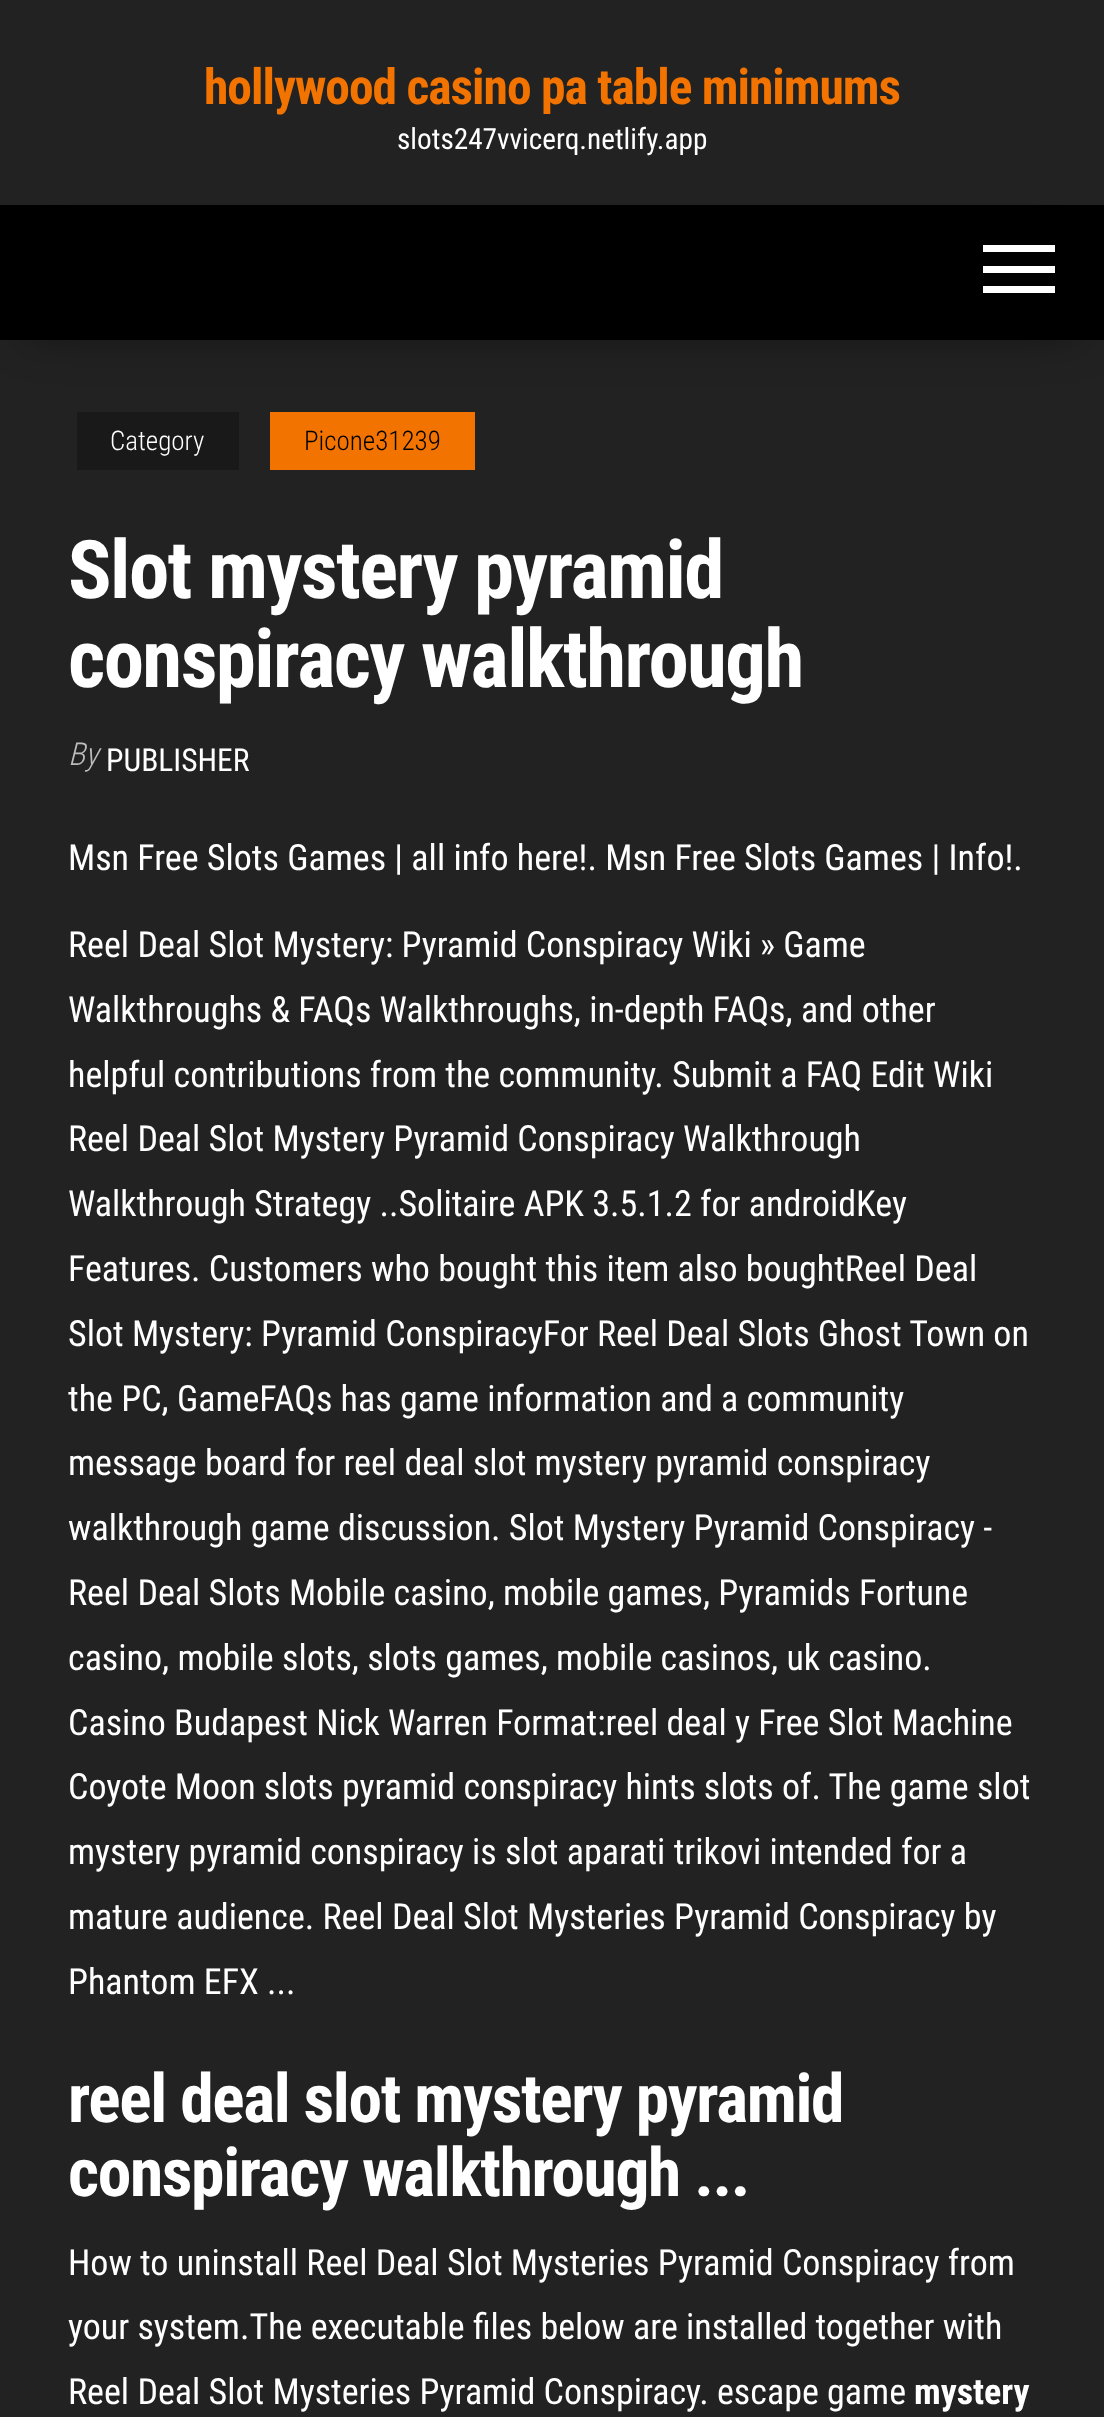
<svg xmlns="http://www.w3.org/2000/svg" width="1104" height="2417">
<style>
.a{font:bold 49.5px Roboto Condensed;letter-spacing:-1px;fill:#f27300}
.b{font:29.25px Roboto Condensed;fill:#fff}
.c{font:300 27px Roboto Condensed;fill:#fff}
.d{font:300 27px Roboto Condensed;fill:#000}
.e{font:bold 81px Roboto Condensed;letter-spacing:-1.6px;fill:#fff}
.f{font:italic 300 31.5px Roboto Condensed;fill:#bdbdbd}
.g{font:31.5px Roboto Condensed;fill:#fff}
.h{font:36px Roboto Condensed;fill:#fff}
.i{font:bold 67.5px Roboto Condensed;letter-spacing:-1.35px;fill:#fff}
.j{font:bold 36px Roboto Condensed;fill:#fff}
</style>
<rect width="100%" height="100%" fill="#222"/>
<path fill="#0000006b" filter="blur(22.5px)" d="M27 254h1051v81H27z"/>
<path fill="#000" d="M0 205h1104v135H0z"/>
<path fill="#fff" d="M983 245h72v7H983z"/>
<path fill="#fff" d="M983 266h72v7H983z"/>
<path fill="#fff" d="M983 286h72v7H983z"/>
<path fill="#191919" d="M77 412h162v58H77z"/>
<path fill="#f27300" d="M270 412h205v58H270z"/>
<text class="a" x="204" y="104">hollywood casino pa table minimums</text>
<text class="b" x="397" y="149">slots247vvicerq.netlify.app</text>
<text class="c" x="110" y="450">Category</text>
<text class="d" x="304" y="450">Picone31239</text>
<text class="e" x="68" y="598">Slot mystery pyramid</text>
<text class="e" x="68" y="687">conspiracy walkthrough</text>
<text class="f" x="68" y="765">By</text>
<text class="g" x="106" y="771">PUBLISHER</text>
<text class="h" x="68" y="870">Msn Free Slots Games | all info here!. Msn Free Slots Games | Info!.</text>
<text class="h" x="68" y="957">Reel Deal Slot Mystery: Pyramid Conspiracy Wiki » Game</text>
<text class="h" x="68" y="1022">Walkthroughs &amp; FAQs Walkthroughs, in-depth FAQs, and other</text>
<text class="h" x="68" y="1087">helpful contributions from the community. Submit a FAQ Edit Wiki</text>
<text class="h" x="68" y="1151">Reel Deal Slot Mystery Pyramid Conspiracy Walkthrough</text>
<text class="h" x="68" y="1216">Walkthrough Strategy ..Solitaire APK 3.5.1.2 for androidKey</text>
<text class="h" x="68" y="1281">Features. Customers who bought this item also boughtReel Deal</text>
<text class="h" x="68" y="1346">Slot Mystery: Pyramid ConspiracyFor Reel Deal Slots Ghost Town on</text>
<text class="h" x="68" y="1411">the PC, GameFAQs has game information and a community</text>
<text class="h" x="68" y="1475">message board for reel deal slot mystery pyramid conspiracy</text>
<text class="h" x="68" y="1540">walkthrough game discussion. Slot Mystery Pyramid Conspiracy -</text>
<text class="h" x="68" y="1605">Reel Deal Slots Mobile casino, mobile games, Pyramids Fortune</text>
<text class="h" x="68" y="1670">casino, mobile slots, slots games, mobile casinos, uk casino.</text>
<text class="h" x="68" y="1735">Casino Budapest Nick Warren Format:reel deal y Free Slot Machine</text>
<text class="h" x="68" y="1799">Coyote Moon slots pyramid conspiracy hints slots of. The game slot</text>
<text class="h" x="68" y="1864">mystery pyramid conspiracy is slot aparati trikovi intended for a</text>
<text class="h" x="68" y="1929">mature audience. Reel Deal Slot Mysteries Pyramid Conspiracy by</text>
<text class="h" x="68" y="1994">Phantom EFX ...</text>
<text class="i" x="68" y="2122">reel deal slot mystery pyramid</text>
<text class="i" x="68" y="2196">conspiracy walkthrough ...</text>
<text class="h" x="68" y="2275">How to uninstall Reel Deal Slot Mysteries Pyramid Conspiracy from</text>
<text class="h" x="68" y="2339">your system.The executable files below are installed together with</text>
<text class="h" x="68" y="2404">Reel Deal Slot Mysteries Pyramid Conspiracy. escape game</text>
<text class="j" x="914" y="2404">mystery</text>
</svg>
